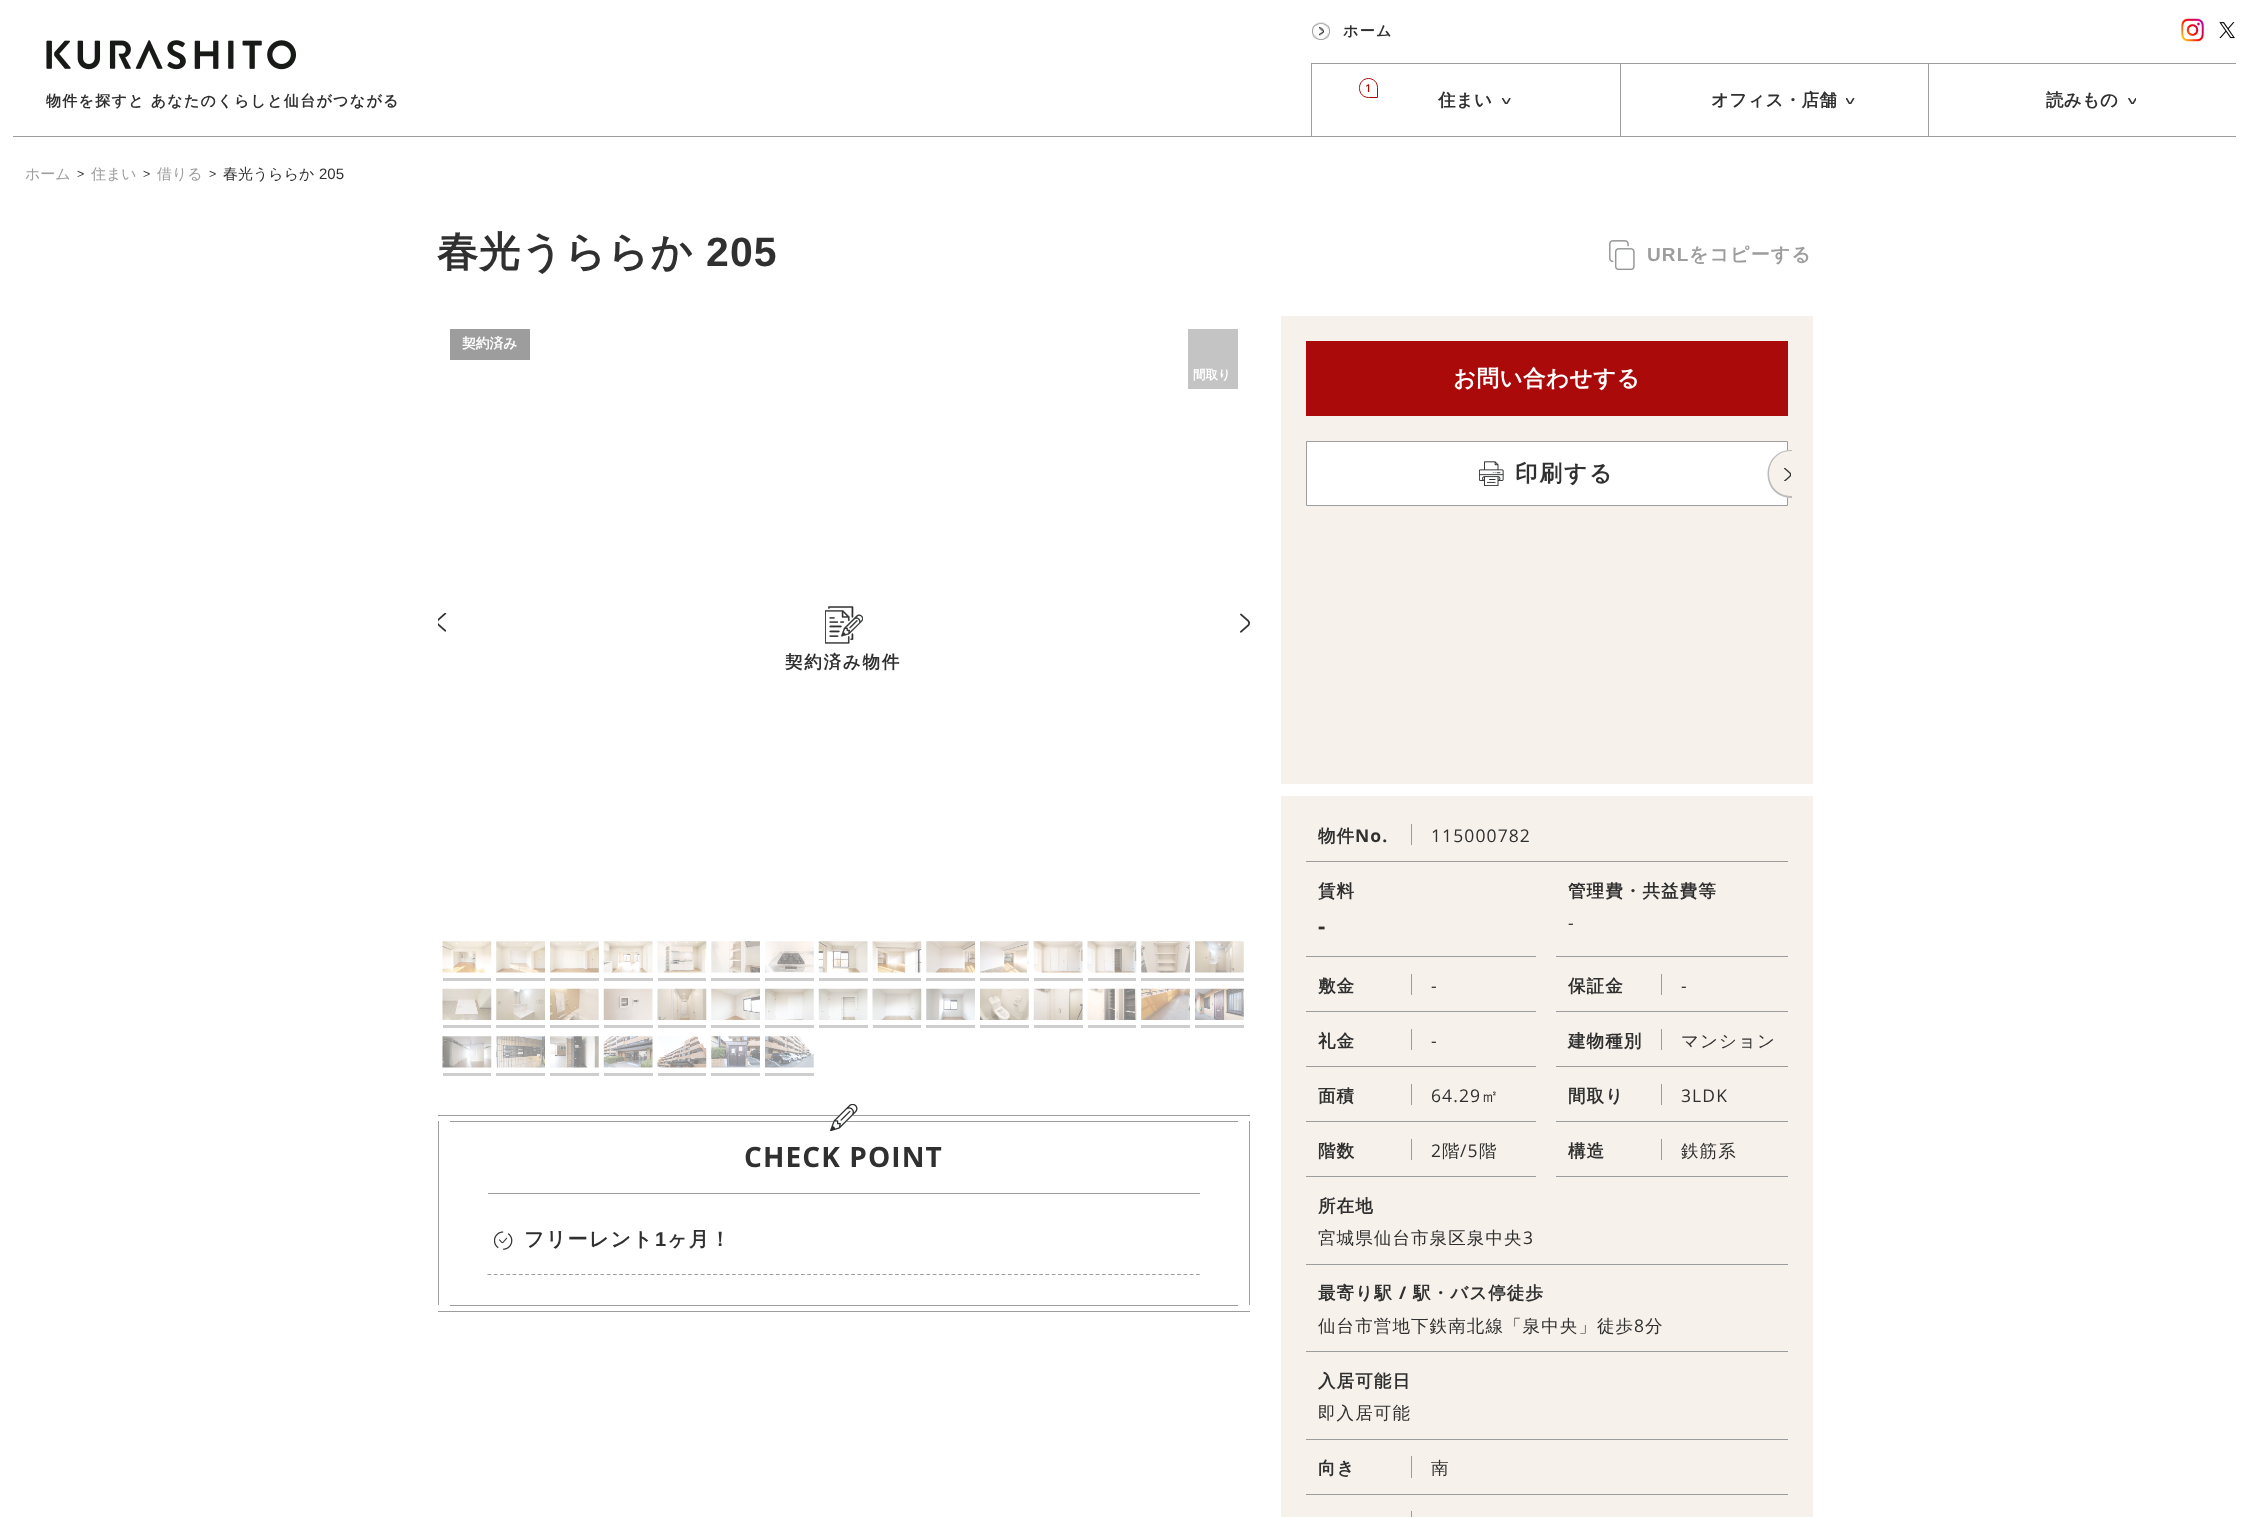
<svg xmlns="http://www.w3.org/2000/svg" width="2248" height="1517">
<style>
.a{font:bold 15px WenQuanYi Zen Hei;letter-spacing:1.3px;fill:#303030}
.b{font:600 11px Open Sans;fill:#ab0a0b}
.c{font:bold 17.5px WenQuanYi Zen Hei;letter-spacing:0.25px;fill:#303030}
.d{font:500 15px WenQuanYi Zen Hei;fill:#9d9d9d}
.e{font:12.5px Liberation Sans;fill:#303030}
.f{font:500 15px WenQuanYi Zen Hei;fill:#303030}
.g{font:15px Liberation Sans;fill:#303030}
.h{font:bold 41px WenQuanYi Zen Hei;letter-spacing:1.1px;fill:#303030}
.i{font:bold 41px Liberation Sans;letter-spacing:1.1px;fill:#303030}
.j{font:bold 19px Liberation Sans;letter-spacing:1.1px;fill:#9d9d9d}
.k{font:bold 19px WenQuanYi Zen Hei;letter-spacing:1.1px;fill:#9d9d9d}
.l{font:bold 13.75px WenQuanYi Zen Hei;fill:#fff}
.m{font:bold 12.5px WenQuanYi Zen Hei;fill:#fff}
.n{font:bold 17.5px WenQuanYi Zen Hei;letter-spacing:1.75px;fill:#303030}
.o{font:bold 28px Open Sans;letter-spacing:1.1px;fill:#303030}
.p{font:bold 20px WenQuanYi Zen Hei;letter-spacing:1.3px;fill:#303030}
.q{font:bold 20px Liberation Sans;letter-spacing:1.3px;fill:#303030}
.r{font:bold 22.5px WenQuanYi Zen Hei;letter-spacing:0.5px;fill:#fff}
.s{font:bold 22.5px WenQuanYi Zen Hei;letter-spacing:2px;fill:#303030}
.t{font:bold 17.5px WenQuanYi Zen Hei;letter-spacing:1.1px;fill:#303030}
.u{font:bold 17.5px Open Sans;letter-spacing:1.1px;fill:#303030}
.v{font:17.5px Open Sans;letter-spacing:1.1px;fill:#303030}
.w{font:bold 22.5px Open Sans;letter-spacing:1.1px;fill:#303030}
.x{font:500 17.5px WenQuanYi Zen Hei;letter-spacing:1.1px;fill:#303030}
</style>
<rect width="100%" height="100%" fill="#fff"/>
<path fill="#9d9d9d" d="M13 136h2223v1H13z"/>
<image href="1.png" x="46" y="40" width="250" height="30"/>
<image href="2.png" x="1312" y="22" width="18" height="18"/>
<image href="3.png" x="2181" y="18" width="23" height="24"/>
<image href="4.png" x="2219" y="22" width="16" height="17"/>
<path fill="#9d9d9d" d="M1311 63h925v1H1311z"/>
<path fill="#9d9d9d" d="M1311 64h1v72H1311z"/>
<path fill="none" stroke="#ab0a0b" d="M1368.5 78.5c5 0 9 4 9 9v10h-9c-5 0-9-4-9-9v-1c0-5 4-9 9-9z"/>
<image href="5.png" x="1501" y="98" width="10" height="6"/>
<path fill="#9d9d9d" d="M1620 64h1v72H1620z"/>
<image href="6.png" x="1846" y="98" width="9" height="6"/>
<path fill="#9d9d9d" d="M1928 64h1v72H1928z"/>
<image href="7.png" x="2128" y="98" width="8" height="6"/>
<image href="8.png" x="1609" y="240" width="26" height="30"/>
<path fill="#9d9d9d" d="M450 329h80v31H450z"/>
<path fill="#c4c4c4" d="M1188 329h50v60H1188z"/>
<image href="9.png" x="438" y="613" width="9" height="19"/>
<image href="10.png" x="825" y="606" width="38" height="38"/>
<image href="11.png" x="1240" y="613" width="10" height="20"/>
<image href="12.png" x="442" y="941" width="50" height="32"/>
<path fill="#cecece" d="M443 978h48v3H443z"/>
<image href="13.png" x="496" y="941" width="49" height="32"/>
<path fill="#cecece" d="M496 978h49v3H496z"/>
<image href="14.png" x="550" y="941" width="49" height="32"/>
<path fill="#cecece" d="M550 978h49v3H550z"/>
<image href="15.png" x="603" y="941" width="50" height="32"/>
<path fill="#cecece" d="M604 978h49v3H604z"/>
<image href="16.png" x="657" y="941" width="50" height="32"/>
<path fill="#cecece" d="M658 978h48v3H658z"/>
<image href="17.png" x="711" y="941" width="49" height="32"/>
<path fill="#cecece" d="M711 978h49v3H711z"/>
<image href="18.png" x="765" y="941" width="49" height="32"/>
<path fill="#cecece" d="M765 978h49v3H765z"/>
<image href="19.png" x="818" y="941" width="50" height="32"/>
<path fill="#cecece" d="M819 978h49v3H819z"/>
<image href="20.png" x="872" y="941" width="50" height="32"/>
<path fill="#cecece" d="M873 978h48v3H873z"/>
<image href="21.png" x="926" y="941" width="49" height="32"/>
<path fill="#cecece" d="M926 978h49v3H926z"/>
<image href="22.png" x="980" y="941" width="49" height="32"/>
<path fill="#cecece" d="M980 978h49v3H980z"/>
<image href="23.png" x="1033" y="941" width="50" height="32"/>
<path fill="#cecece" d="M1034 978h49v3H1034z"/>
<image href="24.png" x="1087" y="941" width="50" height="32"/>
<path fill="#cecece" d="M1088 978h48v3H1088z"/>
<image href="25.png" x="1141" y="941" width="49" height="32"/>
<path fill="#cecece" d="M1141 978h49v3H1141z"/>
<image href="26.png" x="1195" y="941" width="49" height="32"/>
<path fill="#cecece" d="M1195 978h49v3H1195z"/>
<image href="27.png" x="442" y="988" width="50" height="32"/>
<path fill="#cecece" d="M443 1025h48v3H443z"/>
<image href="28.png" x="496" y="988" width="49" height="32"/>
<path fill="#cecece" d="M496 1025h49v3H496z"/>
<image href="29.png" x="550" y="988" width="49" height="32"/>
<path fill="#cecece" d="M550 1025h49v3H550z"/>
<image href="30.png" x="603" y="988" width="50" height="32"/>
<path fill="#cecece" d="M604 1025h49v3H604z"/>
<image href="31.png" x="657" y="988" width="50" height="32"/>
<path fill="#cecece" d="M658 1025h48v3H658z"/>
<image href="32.png" x="711" y="988" width="49" height="32"/>
<path fill="#cecece" d="M711 1025h49v3H711z"/>
<image href="33.png" x="765" y="988" width="49" height="32"/>
<path fill="#cecece" d="M765 1025h49v3H765z"/>
<image href="34.png" x="818" y="988" width="50" height="32"/>
<path fill="#cecece" d="M819 1025h49v3H819z"/>
<image href="35.png" x="872" y="988" width="50" height="32"/>
<path fill="#cecece" d="M873 1025h48v3H873z"/>
<image href="36.png" x="926" y="988" width="49" height="32"/>
<path fill="#cecece" d="M926 1025h49v3H926z"/>
<image href="37.png" x="980" y="988" width="49" height="32"/>
<path fill="#cecece" d="M980 1025h49v3H980z"/>
<image href="38.png" x="1033" y="988" width="50" height="32"/>
<path fill="#cecece" d="M1034 1025h49v3H1034z"/>
<image href="39.png" x="1087" y="988" width="50" height="32"/>
<path fill="#cecece" d="M1088 1025h48v3H1088z"/>
<image href="40.png" x="1141" y="988" width="49" height="32"/>
<path fill="#cecece" d="M1141 1025h49v3H1141z"/>
<image href="41.png" x="1195" y="988" width="49" height="32"/>
<path fill="#cecece" d="M1195 1025h49v3H1195z"/>
<image href="42.png" x="442" y="1036" width="50" height="32"/>
<path fill="#cecece" d="M443 1073h48v3H443z"/>
<image href="43.png" x="496" y="1036" width="49" height="32"/>
<path fill="#cecece" d="M496 1073h49v3H496z"/>
<image href="44.png" x="550" y="1036" width="49" height="32"/>
<path fill="#cecece" d="M550 1073h49v3H550z"/>
<image href="45.png" x="603" y="1036" width="50" height="32"/>
<path fill="#cecece" d="M604 1073h49v3H604z"/>
<image href="46.png" x="657" y="1036" width="50" height="32"/>
<path fill="#cecece" d="M658 1073h48v3H658z"/>
<image href="47.png" x="711" y="1036" width="49" height="32"/>
<path fill="#cecece" d="M711 1073h49v3H711z"/>
<image href="48.png" x="765" y="1036" width="49" height="32"/>
<path fill="#cecece" d="M765 1073h49v3H765z"/>
<path fill="#9d9d9d" d="M438 1115h812v1H438z"/>
<path fill="#9d9d9d" d="M438 1311h812v1H438z"/>
<path fill="#9d9d9d" d="M438 1121h1v184H438z"/>
<path fill="#9d9d9d" d="M450 1121h788v1H450z"/>
<path fill="#9d9d9d" d="M450 1305h788v1H450z"/>
<image href="49.png" x="830" y="1104" width="28" height="27"/>
<path fill="#9d9d9d" d="M488 1193h712v1H488z"/>
<path fill="none" stroke="#9d9d9d" stroke-width="1.2" stroke-dasharray="3.75 2.52" d="M487.5 1274.5h712.5"/>
<image href="50.png" x="494" y="1231" width="19" height="19"/>
<path fill="#9d9d9d" d="M1249 1121h1v184H1249z"/>
<path fill="#f6f1ea" d="M1281 316h532v468H1281z"/>
<path fill="#ab0a0b" d="M1306 341h482v75H1306z"/>
<path fill="#fff" stroke="#9d9d9d" d="M1306.5 441.5h481v64H1306.5z"/>
<image href="51.png" x="1479" y="461" width="25" height="25"/>
<path fill="#f6f1ea" d="M1792 450h1v48h-1c-13.5 0-24-10.5-24-24c0-13.5 10.5-24 24-24z"/>
<path fill="#bbb" fill-rule="evenodd" d="M1791 450h1v48c-33 0-32-48-1-48zm0 1h1v45c-31 0-30-45-1-45z"/>
<image href="52.png" x="1784" y="468" width="7" height="13"/>
<path fill="#f6f1ea" d="M1281 796h532v721H1281z"/>
<path fill="#9d9d9d" d="M1306 861h482v1H1306z"/>
<path fill="#9d9d9d" d="M1411 824h1v21H1411z"/>
<path fill="#9d9d9d" d="M1306 956h230v1H1306z"/>
<path fill="#9d9d9d" d="M1556 956h232v1H1556z"/>
<path fill="#9d9d9d" d="M1306 1011h230v1H1306z"/>
<path fill="#9d9d9d" d="M1411 974h1v21H1411z"/>
<path fill="#9d9d9d" d="M1556 1011h232v1H1556z"/>
<path fill="#9d9d9d" d="M1661 974h1v21H1661z"/>
<path fill="#9d9d9d" d="M1306 1066h230v1H1306z"/>
<path fill="#9d9d9d" d="M1411 1029h1v21H1411z"/>
<path fill="#9d9d9d" d="M1556 1066h232v1H1556z"/>
<path fill="#9d9d9d" d="M1661 1029h1v21H1661z"/>
<path fill="#9d9d9d" d="M1306 1121h230v1H1306z"/>
<path fill="#9d9d9d" d="M1411 1084h1v21H1411z"/>
<path fill="#9d9d9d" d="M1556 1121h232v1H1556z"/>
<path fill="#9d9d9d" d="M1661 1084h1v21H1661z"/>
<path fill="#9d9d9d" d="M1306 1176h230v1H1306z"/>
<path fill="#9d9d9d" d="M1411 1139h1v21H1411z"/>
<path fill="#9d9d9d" d="M1556 1176h232v1H1556z"/>
<path fill="#9d9d9d" d="M1661 1139h1v21H1661z"/>
<path fill="#9d9d9d" d="M1306 1264h482v1H1306z"/>
<path fill="#9d9d9d" d="M1306 1351h482v1H1306z"/>
<path fill="#9d9d9d" d="M1306 1439h482v1H1306z"/>
<path fill="#9d9d9d" d="M1306 1494h482v1H1306z"/>
<path fill="#9d9d9d" d="M1411 1456h1v22H1411z"/>
<path fill="#9d9d9d" d="M1411 1511h1v6H1411z"/>
<text class="a" x="46" y="106">物件を探すと あなたのくらしと仙台がつながる</text>
<text class="a" x="1343" y="36">ホーム</text>
<text class="b" x="1365" y="92">1</text>
<text class="c" x="1438" y="106">住まい</text>
<text class="c" x="1711" y="106">オフィス・店舗</text>
<text class="c" x="2046" y="106">読みもの</text>
<text class="d" x="25" y="179">ホーム</text>
<text class="e" x="77" y="178">&gt;</text>
<text class="d" x="91" y="179">住まい</text>
<text class="e" x="143" y="178">&gt;</text>
<text class="d" x="157" y="179">借りる</text>
<text class="e" x="209" y="178">&gt;</text>
<text class="f" x="223" y="179">春光うららか</text>
<text class="g" x="319" y="179">205</text>
<text class="h" x="437" y="266">春光うららか</text>
<text class="i" x="706" y="266">205</text>
<text class="j" x="1647" y="261">URL</text>
<text class="k" x="1689" y="261">をコピーする</text>
<text class="l" x="462" y="348">契約済み</text>
<text class="m" x="1193" y="379">間取り</text>
<text class="n" x="785" y="668">契約済み物件</text>
<text class="o" x="744" y="1167">CHECK POINT</text>
<text class="p" x="524" y="1246">フリーレント</text>
<text class="q" x="655" y="1246">1</text>
<text class="p" x="667" y="1246">ヶ月！</text>
<text class="r" x="1453" y="386">お問い合わせする</text>
<text class="s" x="1515" y="481">印刷する</text>
<text class="t" x="1318" y="842">物件</text>
<text class="u" x="1355" y="842">No.</text>
<text class="v" x="1431" y="842">115000782</text>
<text class="t" x="1318" y="897">賃料</text>
<text class="w" x="1318" y="934">-</text>
<text class="t" x="1568" y="897">管理費・共益費等</text>
<text class="v" x="1568" y="929">-</text>
<text class="t" x="1318" y="992">敷金</text>
<text class="v" x="1431" y="992">-</text>
<text class="t" x="1568" y="992">保証金</text>
<text class="v" x="1681" y="992">-</text>
<text class="t" x="1318" y="1047">礼金</text>
<text class="v" x="1431" y="1047">-</text>
<text class="t" x="1568" y="1047">建物種別</text>
<text class="x" x="1681" y="1047">マンション</text>
<text class="t" x="1318" y="1102">面積</text>
<text class="v" x="1431" y="1102">64.29</text>
<text class="x" x="1481" y="1102">㎡</text>
<text class="t" x="1568" y="1102">間取り</text>
<text class="v" x="1681" y="1102">3LDK</text>
<text class="t" x="1318" y="1157">階数</text>
<text class="v" x="1431" y="1157">2</text>
<text class="x" x="1442" y="1157">階</text>
<text class="v" x="1460" y="1157">/5</text>
<text class="x" x="1479" y="1157">階</text>
<text class="t" x="1568" y="1157">構造</text>
<text class="x" x="1681" y="1157">鉄筋系</text>
<text class="t" x="1318" y="1212">所在地</text>
<text class="x" x="1318" y="1244">宮城県仙台市泉区泉中央</text>
<text class="v" x="1523" y="1244">3</text>
<text class="t" x="1318" y="1299">最寄り駅</text>
<text class="u" x="1399" y="1299">/</text>
<text class="t" x="1413" y="1299">駅・バス停徒歩</text>
<text class="x" x="1318" y="1332">仙台市営地下鉄南北線「泉中央」徒歩</text>
<text class="v" x="1634" y="1332">8</text>
<text class="x" x="1645" y="1332">分</text>
<text class="t" x="1318" y="1387">入居可能日</text>
<text class="x" x="1318" y="1419">即入居可能</text>
<text class="t" x="1318" y="1474">向き</text>
<text class="x" x="1431" y="1474">南</text>
</svg>
